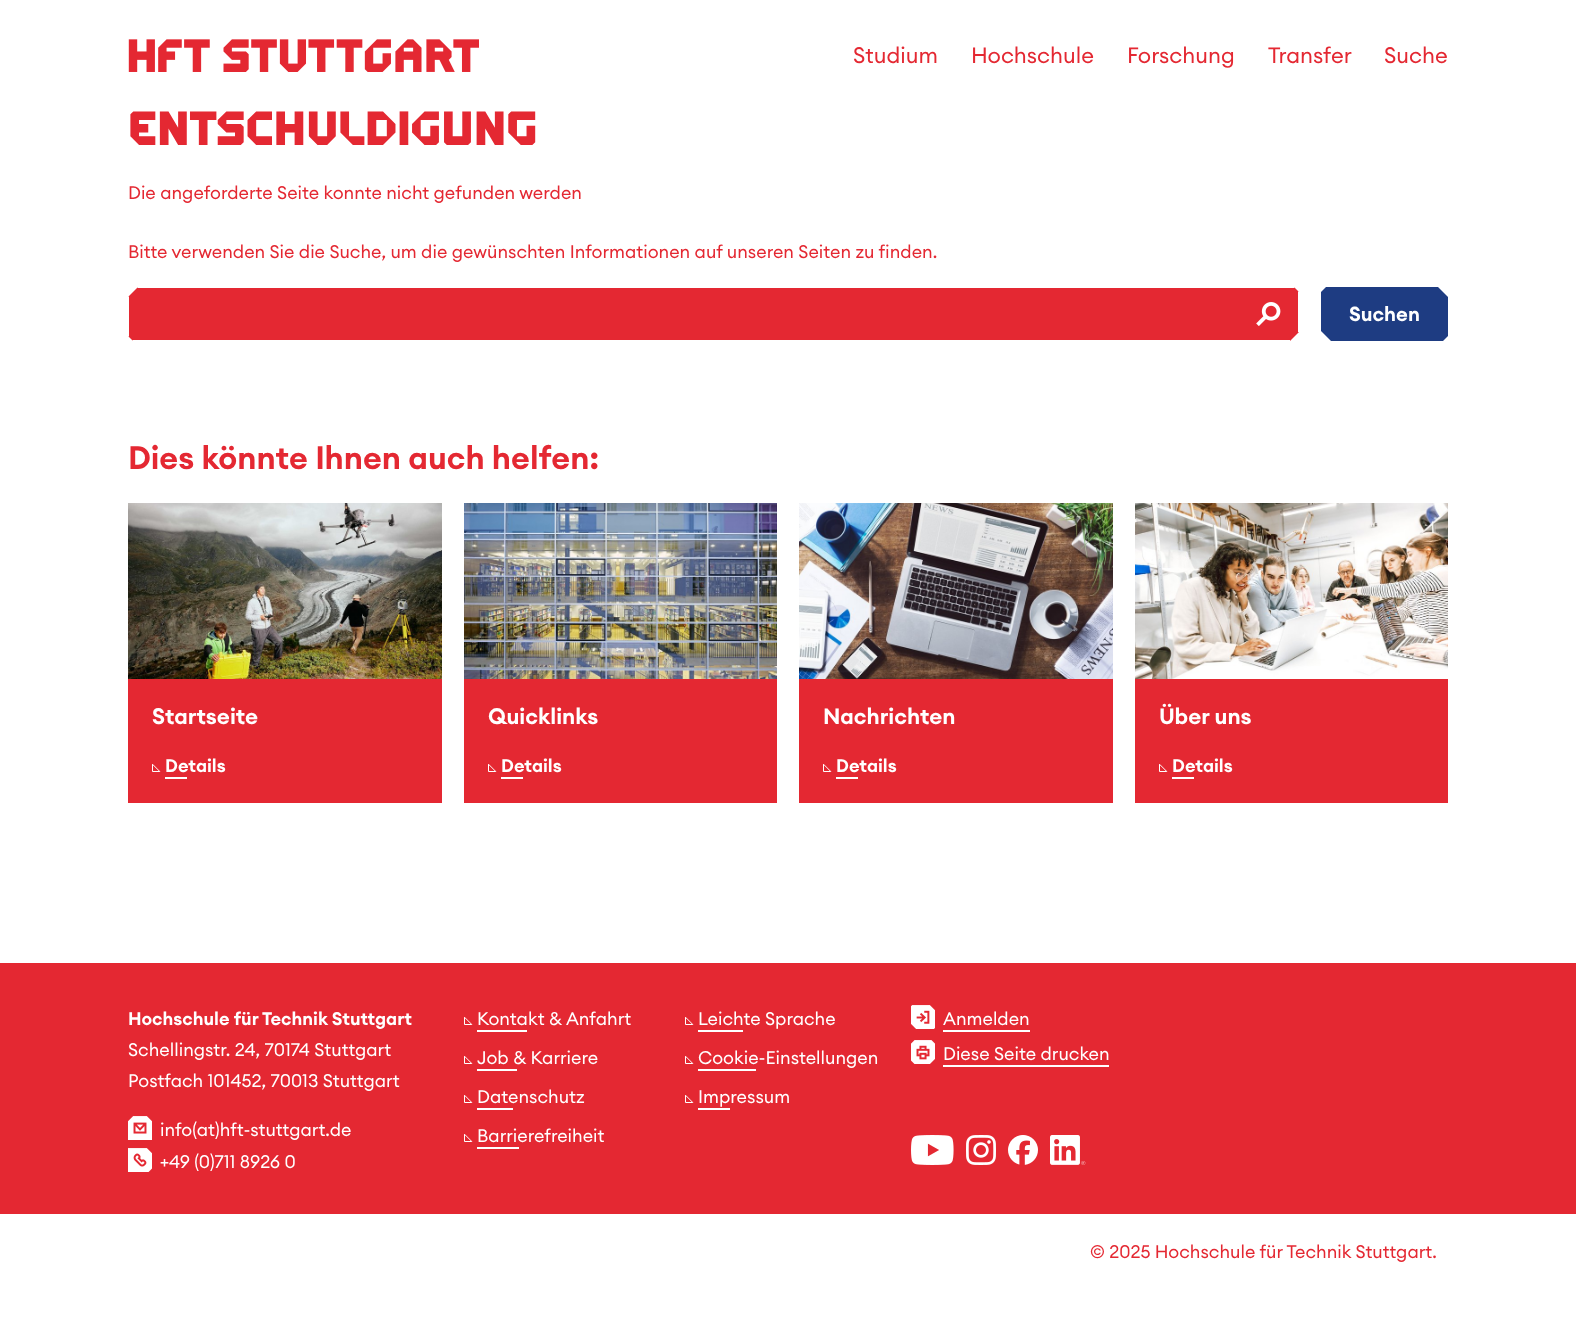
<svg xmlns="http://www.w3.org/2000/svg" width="1576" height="1319">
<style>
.a{font:22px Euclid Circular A;fill:#e42832}
.b{font:bold 48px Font;fill:#e42832}
.c{font:18px Euclid Circular A;fill:#e42832}
.d{font:600 20px Euclid Circular A;fill:#fff}
.e{font:600 32px Euclid Circular A;fill:#e42832}
.f{font:600 22px Euclid Circular A;fill:#fff}
.g{font:600 18px Euclid Circular A;fill:#fff}
.h{font:18px Euclid Circular A;fill:#fff}
</style>
<rect width="100%" height="100%" fill="#fff"/>
<image href="1.png" x="128" y="39" width="351" height="33"/>
<path fill="#e42832" d="M128 297v39l5 5h1157l9-9v-40l-5-5h-1156z"/>
<path fill="#fff" fill-rule="evenodd" d="M128 297v39l1 1v-41zm9-9h1158l-1-1h-1156zm1161 3v41h1v-40zm-8 50v-1h-1158l1 1z"/>
<image href="2.png" x="1256" y="302" width="25" height="24"/>
<path fill="#1e3c82" d="M1321 292l5-5h112l10 10v39l-5 5h-112l-10-10z"/>
<image href="3.png" x="128" y="503" width="314" height="176"/>
<path fill="#e42832" d="M128 679h314v124H128z"/>
<image href="4.png" x="152" y="764" width="9" height="8"/>
<path fill="#fff" d="M165 777h22v2H165z"/>
<image href="5.png" x="464" y="503" width="313" height="176"/>
<path fill="#e42832" d="M464 679h313v124H464z"/>
<image href="4.png" x="488" y="764" width="9" height="8"/>
<path fill="#fff" d="M501 777h22v2H501z"/>
<image href="6.png" x="799" y="503" width="314" height="176"/>
<path fill="#e42832" d="M799 679h314v124H799z"/>
<image href="4.png" x="823" y="764" width="9" height="8"/>
<path fill="#fff" d="M836 777h22v2H836z"/>
<image href="7.png" x="1135" y="503" width="313" height="176"/>
<path fill="#e42832" d="M1135 679h313v124H1135z"/>
<image href="4.png" x="1159" y="764" width="9" height="8"/>
<path fill="#fff" d="M1172 777h22v2H1172z"/>
<path fill="#e42832" d="M0 963h1576v251H0z"/>
<image href="8.png" x="128" y="1116" width="24" height="24"/>
<image href="9.png" x="128" y="1148" width="24" height="24"/>
<image href="4.png" x="464" y="1017" width="9" height="8"/>
<path fill="#fff" d="M477 1030h50v2H477z"/>
<image href="4.png" x="685" y="1017" width="9" height="8"/>
<path fill="#fff" d="M698 1030h45v2H698z"/>
<image href="4.png" x="464" y="1056" width="9" height="8"/>
<path fill="#fff" d="M477 1069h40v2H477z"/>
<image href="4.png" x="685" y="1056" width="9" height="8"/>
<path fill="#fff" d="M698 1069h58v2H698z"/>
<image href="4.png" x="464" y="1095" width="9" height="8"/>
<path fill="#fff" d="M477 1108h36v2H477z"/>
<image href="4.png" x="685" y="1095" width="9" height="8"/>
<path fill="#fff" d="M698 1108h32v2H698z"/>
<image href="4.png" x="464" y="1134" width="9" height="8"/>
<path fill="#fff" d="M477 1147h42v2H477z"/>
<image href="10.png" x="911" y="1005" width="24" height="24"/>
<path fill="#fff" d="M943 1030h87v2H943z"/>
<image href="11.png" x="911" y="1040" width="24" height="24"/>
<path fill="#fff" d="M943 1065h166v2H943z"/>
<image href="12.png" x="911" y="1135" width="43" height="30"/>
<image href="13.png" x="966" y="1135" width="30" height="30"/>
<image href="14.png" x="1008" y="1135" width="30" height="30"/>
<image href="15.png" x="1050" y="1135" width="36" height="30"/>
<text class="a" x="853" y="63">Studium</text>
<text class="a" x="971" y="63">Hochschule</text>
<text class="a" x="1127" y="63">Forschung</text>
<text class="a" x="1268" y="63">Transfer</text>
<text class="a" x="1384" y="63">Suche</text>
<text class="b" x="128" y="145">Entschuldigung</text>
<text class="c" x="128" y="199">Die angeforderte Seite konnte nicht gefunden werden</text>
<text class="c" x="128" y="258">Bitte verwenden Sie die Suche, um die gewünschten Informationen auf unseren Seiten zu finden.</text>
<text class="d" x="1349" y="321">Suchen</text>
<text class="e" x="128" y="469">Dies könnte Ihnen auch helfen:</text>
<text class="f" x="152" y="724">Startseite</text>
<text class="g" x="165" y="772">Details</text>
<text class="f" x="488" y="724">Quicklinks</text>
<text class="g" x="501" y="772">Details</text>
<text class="f" x="823" y="724">Nachrichten</text>
<text class="g" x="836" y="772">Details</text>
<text class="f" x="1159" y="724">Über uns</text>
<text class="g" x="1172" y="772">Details</text>
<text class="g" x="128" y="1025">Hochschule für Technik Stuttgart</text>
<text class="h" x="128" y="1056">Schellingstr. 24, 70174 Stuttgart</text>
<text class="h" x="128" y="1087">Postfach 101452, 70013 Stuttgart</text>
<text class="h" x="160" y="1136">info(at)hft-stuttgart.de</text>
<text class="h" x="160" y="1168">+49 (0)711 8926 0</text>
<text class="h" x="477" y="1025">Kontakt &amp; Anfahrt</text>
<text class="h" x="698" y="1025">Leichte Sprache</text>
<text class="h" x="477" y="1064">Job &amp; Karriere</text>
<text class="h" x="698" y="1064">Cookie-Einstellungen</text>
<text class="h" x="477" y="1103">Datenschutz</text>
<text class="h" x="698" y="1103">Impressum</text>
<text class="h" x="477" y="1142">Barrierefreiheit</text>
<text class="h" x="943" y="1025">Anmelden</text>
<text class="h" x="943" y="1060">Diese Seite drucken</text>
<text class="c" x="1090" y="1258">© 2025 Hochschule für Technik Stuttgart.</text>
</svg>
